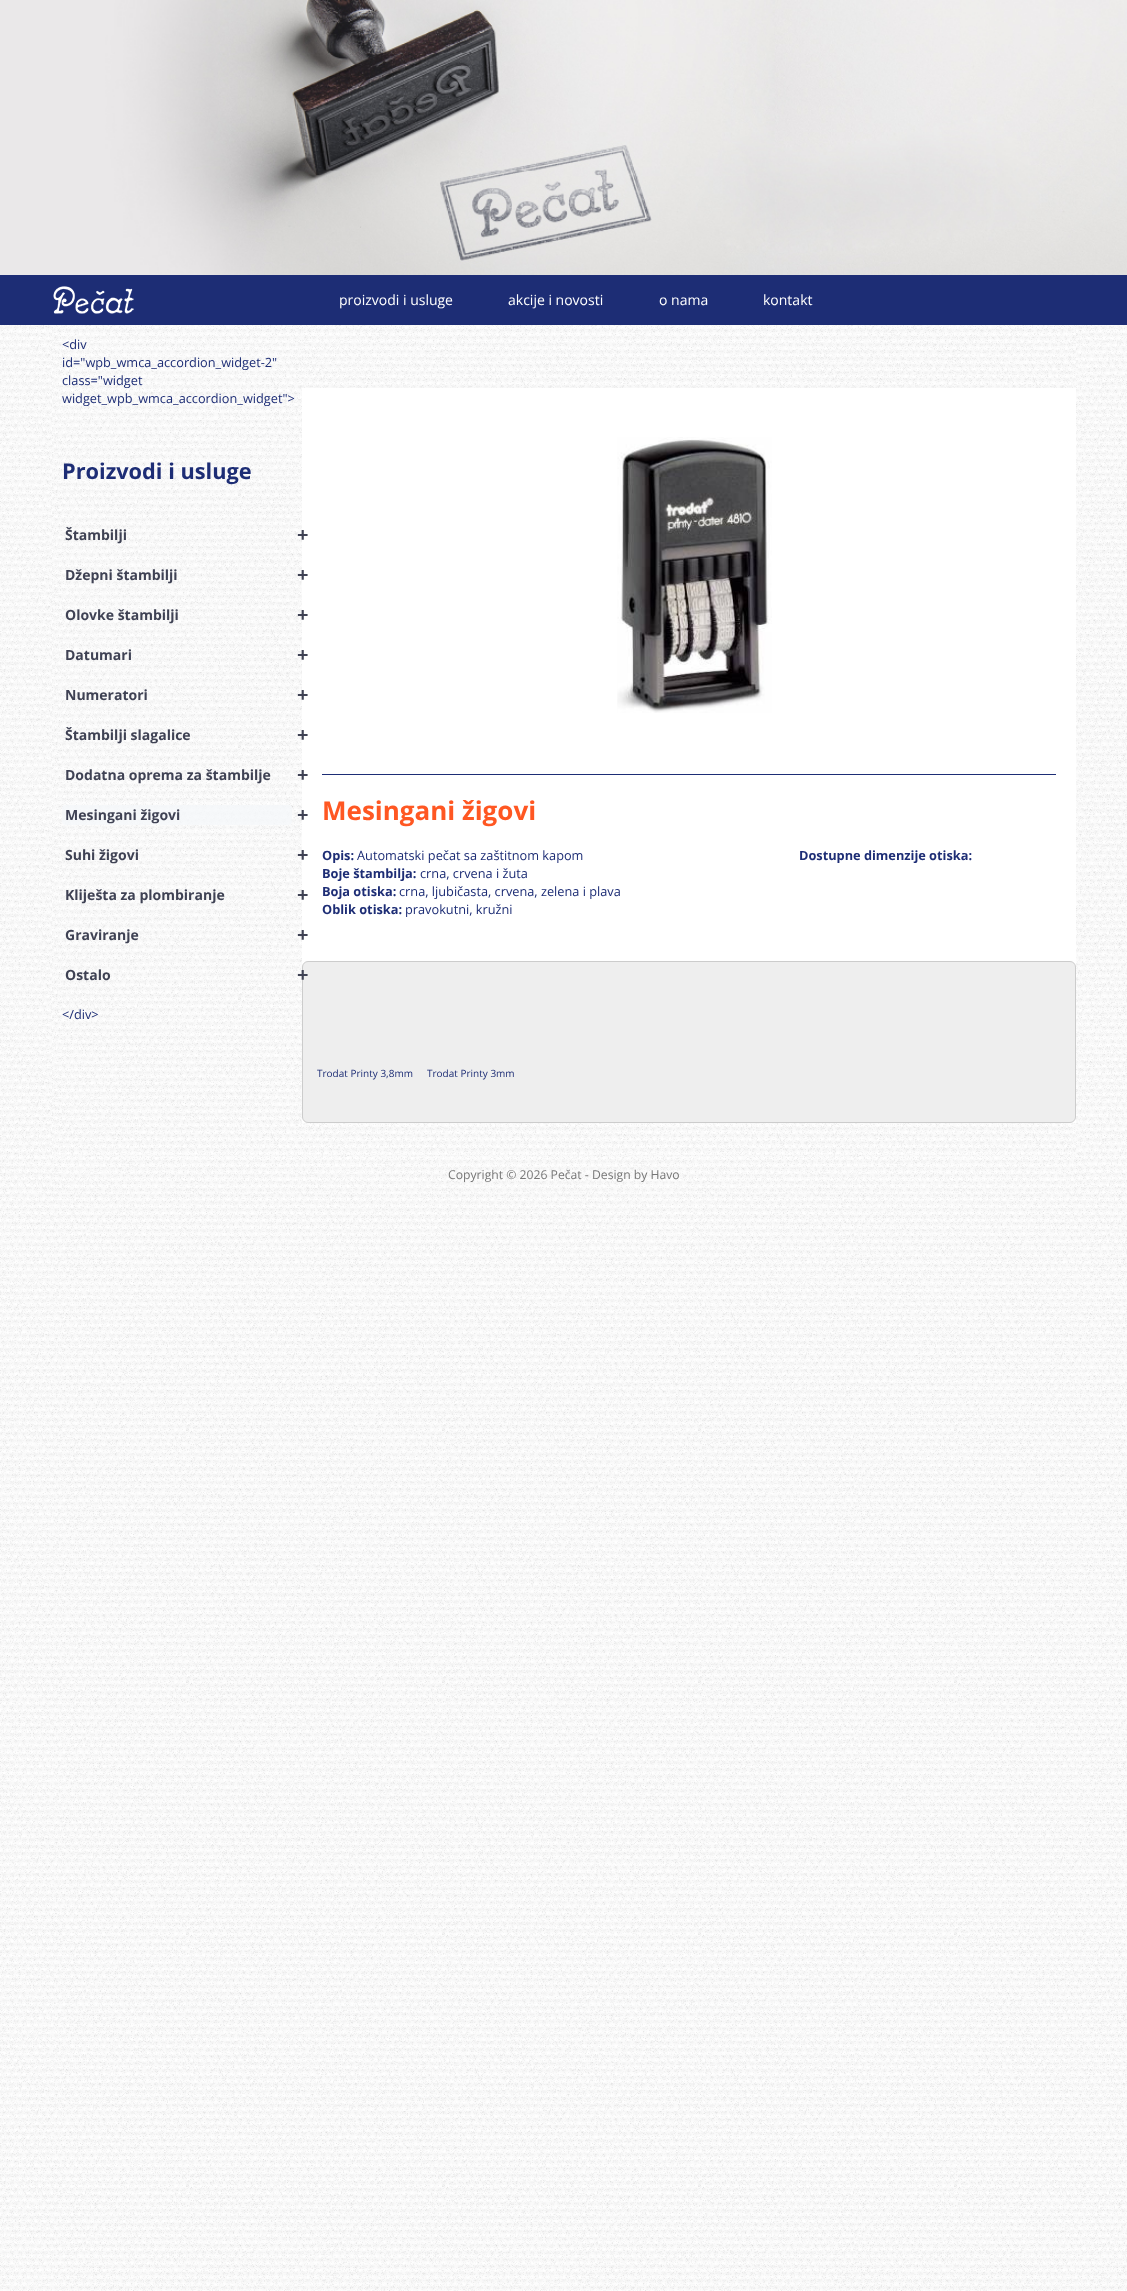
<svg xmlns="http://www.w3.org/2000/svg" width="1127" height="2291">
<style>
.a{font:14px Open Sans;fill:#fff}
.b{font:12.75px Open Sans;fill:#1d2d75}
.c{font:bold 21.75px Open Sans;fill:#1d2d75}
.d{font:bold 14px Open Sans;fill:#3f4254}
.e{font:bold 20px Open Sans;fill:#3f4254}
.f{font:bold 26px Open Sans;fill:#ff5722}
.g{font:bold 12.75px Open Sans;fill:#1d2d75}
.h{font:10px Open Sans;fill:#1d2d75}
.i{font:12.2px Open Sans;fill:#777}
</style>
<rect width="100%" height="100%" fill="#fff"/>
<image href="1.png" x="0" y="325" width="1127" height="1966"/>
<image href="2.png" x="0" y="0" width="1127" height="275"/>
<path fill="#1d2d75" d="M0 275h1127v50H0z"/>
<image href="3.png" x="53" y="286" width="81" height="28"/>
<image href="4.png" x="52" y="325" width="250" height="831"/>
<rect fill="#f5f8facc" x="62" y="805" width="230" height="20" rx="4"/>
<image href="5.png" x="302" y="325" width="774" height="831"/>
<path fill="#fff" d="M302 388h774v735H302z"/>
<image href="6.png" x="617" y="437" width="155" height="276"/>
<path fill="#1d2d75" d="M322 774h734v1H322z"/>
<rect fill="#eee" stroke="#ccc" x="302.5" y="961.5" width="773" height="161" rx="5.5"/>
<image href="7.png" x="52" y="1156" width="1024" height="37"/>
<text class="a" x="339" y="305">proizvodi i usluge</text>
<text class="a" x="508" y="305">akcije i novosti</text>
<text class="a" x="659" y="305">o nama</text>
<text class="a" x="763" y="305">kontakt</text>
<text class="b" x="62" y="349">&lt;div</text>
<text class="b" x="62" y="367">id="wpb_wmca_accordion_widget-2"</text>
<text class="b" x="62" y="385">class="widget</text>
<text class="b" x="62" y="403">widget_wpb_wmca_accordion_widget"&gt;</text>
<text class="c" x="62" y="479">Proizvodi i usluge</text>
<text class="d" x="65" y="540">Štambilji</text>
<text class="e" x="297" y="542">+</text>
<text class="d" x="65" y="580">Džepni štambilji</text>
<text class="e" x="297" y="582">+</text>
<text class="d" x="65" y="620">Olovke štambilji</text>
<text class="e" x="297" y="622">+</text>
<text class="d" x="65" y="660">Datumari</text>
<text class="e" x="297" y="662">+</text>
<text class="d" x="65" y="700">Numeratori</text>
<text class="e" x="297" y="702">+</text>
<text class="d" x="65" y="740">Štambilji slagalice</text>
<text class="e" x="297" y="742">+</text>
<text class="d" x="65" y="780">Dodatna oprema za štambilje</text>
<text class="e" x="297" y="782">+</text>
<text class="d" x="65" y="820">Mesingani žigovi</text>
<text class="e" x="297" y="822">+</text>
<text class="d" x="65" y="860">Suhi žigovi</text>
<text class="e" x="297" y="862">+</text>
<text class="d" x="65" y="900">Kliješta za plombiranje</text>
<text class="e" x="297" y="902">+</text>
<text class="d" x="65" y="940">Graviranje</text>
<text class="e" x="297" y="942">+</text>
<text class="d" x="65" y="980">Ostalo</text>
<text class="e" x="297" y="982">+</text>
<text class="b" x="62" y="1019">&lt;/div&gt;</text>
<text class="f" x="322" y="820">Mesingani žigovi</text>
<text class="g" x="322" y="860">Opis:</text>
<text class="b" x="357" y="860">Automatski pečat sa zaštitnom kapom</text>
<text class="g" x="322" y="878">Boje štambilja:</text>
<text class="b" x="420" y="878">crna, crvena i žuta</text>
<text class="g" x="322" y="896">Boja otiska:</text>
<text class="b" x="399" y="896">crna, ljubičasta, crvena, zelena i plava</text>
<text class="g" x="322" y="914">Oblik otiska:</text>
<text class="b" x="405" y="914">pravokutni, kružni</text>
<text class="g" x="799" y="860">Dostupne dimenzije otiska:</text>
<text class="h" x="317" y="1077">Trodat Printy 3,8mm</text>
<text class="h" x="427" y="1077">Trodat Printy 3mm</text>
<text class="i" x="448" y="1179">Copyright © 2026 Pečat - Design by Havo</text>
</svg>
